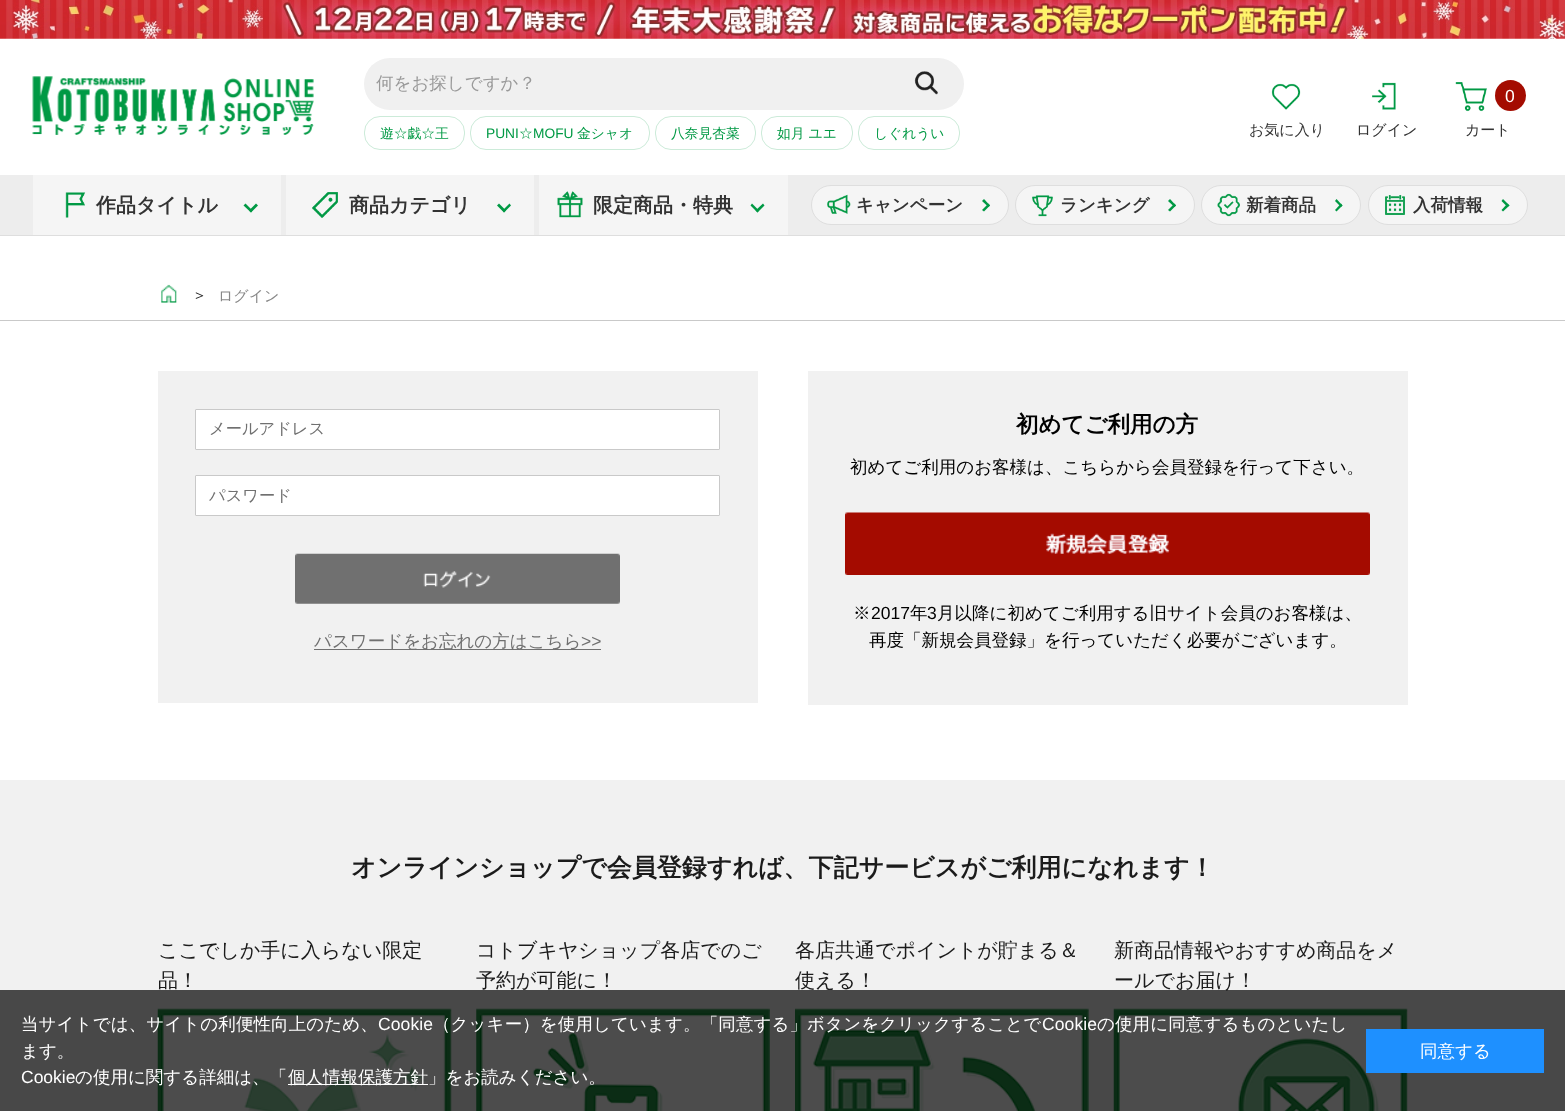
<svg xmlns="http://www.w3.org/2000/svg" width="1565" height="1111">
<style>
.a{font:500 17.5px WenQuanYi Zen Hei;fill:#999}
.b{font:500 13.75px WenQuanYi Zen Hei;fill:#094}
.c{font:13.75px Liberation Sans;fill:#094}
.d{font:500 15px WenQuanYi Zen Hei;fill:#333}
.e{font:17.5px Liberation Sans;fill:#fff}
.f{font:bold 20px WenQuanYi Zen Hei;fill:#333}
.g{font:bold 17.5px WenQuanYi Zen Hei;fill:#333}
.h{font:500 15px WenQuanYi Zen Hei;fill:#1b1b1b}
.i{font:500 15px WenQuanYi Zen Hei;fill:#888}
.j{font:500 16.25px WenQuanYi Zen Hei;fill:#707070}
.k{font:500 17.5px WenQuanYi Zen Hei;fill:#707070}
.l{font:17.5px Liberation Sans;fill:#707070}
.m{font:bold 22.5px WenQuanYi Zen Hei;fill:#000}
.n{font:500 17.5px WenQuanYi Zen Hei;fill:#000}
.o{font:17.5px Liberation Sans;fill:#000}
.p{font:bold 25px WenQuanYi Zen Hei;fill:#1b1b1b}
.q{font:500 20px WenQuanYi Zen Hei;fill:#1b1b1b}
.r{font:500 17.5px WenQuanYi Zen Hei;letter-spacing:0.1px;fill:#fff}
.s{font:17.5px Liberation Sans;letter-spacing:0.1px;fill:#fff}
.t{font:500 17.5px WenQuanYi Zen Hei;fill:#fff}
</style>
<rect width="100%" height="100%" fill="#fff"/>
<image href="1.png" x="0" y="0" width="1565" height="39"/>
<image href="2.png" x="32" y="76" width="282" height="59"/>
<rect fill="#f0f0f0" x="364" y="58" width="600" height="52" rx="26"/>
<image href="3.png" x="914" y="71" width="24" height="24"/>
<rect fill="none" stroke="#ccebd9" x="364.5" y="116.5" width="100" height="33" rx="15.5"/>
<rect fill="none" stroke="#ccebd9" x="470.5" y="116.5" width="179" height="33" rx="15.5"/>
<rect fill="none" stroke="#ccebd9" x="655.5" y="116.5" width="100" height="33" rx="15.5"/>
<rect fill="none" stroke="#ccebd9" x="761.5" y="116.5" width="91" height="33" rx="15.5"/>
<rect fill="none" stroke="#ccebd9" x="858.5" y="116.5" width="101" height="33" rx="15.5"/>
<image href="4.png" x="1271" y="83" width="30" height="27"/>
<image href="5.png" x="1372" y="82" width="24" height="28"/>
<image href="6.png" x="1455" y="82" width="32" height="30"/>
<circle fill="#a40c01" cx="1510.5" cy="95.5" r="15.5"/>
<path fill="#ededed" d="M0 175h1565v60H0z"/>
<path fill="#dedede" d="M0 235h1565v1H0z"/>
<path fill="#f5f5f5" d="M33 175h248v60H33z"/>
<image href="7.png" x="65" y="192" width="21" height="26"/>
<path fill="#094" d="M258 205.5l-7 7l-2-2l7-7z"/>
<path fill="#094" d="M252.5 210.5l-1.5 2l-7.5-7l2-2z"/>
<path fill="#f5f5f5" d="M286 175h248v60H286z"/>
<image href="8.png" x="312" y="192" width="26" height="26"/>
<path fill="#094" d="M511 205.5l-7 7l-1.5-2l7-7z"/>
<path fill="#094" d="M506 210.5l-2 2l-7-7l2-2z"/>
<path fill="#f5f5f5" d="M539 175h249v60H539z"/>
<image href="9.png" x="557" y="191" width="26" height="27"/>
<path fill="#094" d="M764.5 205.5l-7 7l-2-2l7.5-7z"/>
<path fill="#094" d="M759 210.5l-1.5 2l-7-7l1.5-2z"/>
<rect fill="#f5f5f5" stroke="#dedede" x="811.5" y="185.5" width="197" height="39" rx="19.5"/>
<image href="10.png" x="827" y="194" width="24" height="20"/>
<path fill="#094" d="M984 199l6 6.5l-1.5 1.5l-6.5-6z"/>
<path fill="#094" d="M988.5 203.5l1.5 2l-6 6l-2-1.5z"/>
<rect fill="#f5f5f5" stroke="#dedede" x="1015.5" y="185.5" width="179" height="39" rx="19.5"/>
<image href="11.png" x="1032" y="195" width="21" height="22"/>
<path fill="#094" d="M1170 199l6 6.5l-1.5 1.5l-6.5-6z"/>
<path fill="#094" d="M1174.5 203.5l1.5 2l-6 6l-2-1.5z"/>
<rect fill="#f5f5f5" stroke="#dedede" x="1201.5" y="185.5" width="159" height="39" rx="19.5"/>
<image href="12.png" x="1217" y="193" width="23" height="24"/>
<path fill="#094" d="M1336.5 199l6 6.5l-1.5 1.5l-6-6z"/>
<path fill="#094" d="M1341 203.5l1.5 2l-6 6l-1.5-1.5z"/>
<rect fill="#f5f5f5" stroke="#dedede" x="1368.5" y="185.5" width="159" height="39" rx="19.5"/>
<image href="13.png" x="1385" y="195" width="20" height="20"/>
<path fill="#094" d="M1503 199l6.5 6.5l-2 1.5l-6-6z"/>
<path fill="#094" d="M1507.5 203.5l2 2l-6.5 6l-1.5-1.5z"/>
<path fill="#c9c9c9" d="M0 320h1565v1H0z"/>
<image href="14.png" x="161" y="284" width="16" height="19"/>
<path fill="#f1f1f1" d="M158 371h600v332H158z"/>
<rect fill="#fff" stroke="#c9c9c9" x="195.5" y="409.5" width="524" height="40" rx="0.5"/>
<rect fill="#fff" stroke="#c9c9c9" x="195.5" y="475.5" width="524" height="40" rx="0.5"/>
<image href="15.png" x="295" y="553" width="325" height="51"/>
<path fill="#707070" d="M314 649h287v1H314z"/>
<path fill="#f1f1f1" d="M808 371h600v334H808z"/>
<image href="16.png" x="845" y="512" width="525" height="63"/>
<path fill="#f1f1f1" d="M0 780h1565v331H0z"/>
<image href="17.png" x="157" y="1008" width="295" height="103"/>
<image href="18.png" x="476" y="1008" width="294" height="103"/>
<image href="19.png" x="795" y="1008" width="294" height="103"/>
<image href="20.png" x="1113" y="1008" width="295" height="103"/>
<text class="a" x="376" y="89">何をお探しですか？</text>
<text class="b" x="380" y="138">遊☆戯☆王</text>
<text class="c" x="486" y="138">PUNI</text>
<text class="b" x="519" y="138">☆</text>
<text class="c" x="533" y="138">MOFU</text>
<text class="b" x="577" y="138">金シャオ</text>
<text class="b" x="671" y="138">八奈見杏菜</text>
<text class="b" x="777" y="138">如月 ユエ</text>
<text class="b" x="874" y="138">しぐれうい</text>
<text class="d" x="1249" y="135">お気に入り</text>
<text class="d" x="1356" y="135">ログイン</text>
<text class="e" x="1505" y="102">0</text>
<text class="d" x="1465" y="135">カート</text>
<text class="f" x="96" y="212">作品タイトル</text>
<text class="f" x="349" y="212">商品カテゴリ</text>
<text class="f" x="593" y="212">限定商品・特典</text>
<text class="g" x="856" y="211">キャンペーン</text>
<text class="g" x="1060" y="211">ランキング</text>
<text class="g" x="1246" y="211">新着商品</text>
<text class="g" x="1413" y="211">入荷情報</text>
<text class="h" x="192" y="300">＞</text>
<text class="i" x="218" y="301">ログイン</text>
<text class="j" x="209" y="434">メールアドレス</text>
<text class="j" x="209" y="501">パスワード</text>
<text class="k" x="314" y="647">パスワードをお忘れの方はこちら</text>
<text class="l" x="581" y="647">&gt;&gt;</text>
<text class="m" x="1016" y="432">初めてご利用の方</text>
<text class="n" x="850" y="473">初めてご利用のお客様は、こちらから会員登録を行って下さい。</text>
<text class="n" x="853" y="619">※</text>
<text class="o" x="871" y="619">2017</text>
<text class="n" x="910" y="619">年</text>
<text class="o" x="927" y="619">3</text>
<text class="n" x="937" y="619">月以降に初めてご利用する旧サイト会員のお客様は、</text>
<text class="n" x="869" y="646">再度「新規会員登録」を行っていただく必要がございます。</text>
<text class="p" x="351" y="876">オンラインショップで会員登録すれば、下記サービスがご利用になれます！</text>
<text class="q" x="158" y="957">ここでしか手に入らない限定</text>
<text class="q" x="158" y="987">品！</text>
<text class="q" x="476" y="957">コトブキヤショップ各店でのご</text>
<text class="q" x="476" y="987">予約が可能に！</text>
<text class="q" x="795" y="957">各店共通でポイントが貯まる＆</text>
<text class="q" x="795" y="987">使える！</text>
<text class="q" x="1114" y="957">新商品情報やおすすめ商品をメ</text>
<text class="q" x="1114" y="987">ールでお届け！</text>
<path fill="#000000b3" d="M0 990h1565v121H0z"/>
<text class="r" x="21" y="1030">当サイトでは、サイトの利便性向上のため、</text>
<text class="s" x="378" y="1030">Cookie</text>
<text class="r" x="433" y="1030">（クッキー）を使用しています。「同意する」ボタンをクリックすることで</text>
<text class="s" x="1042" y="1030">Cookie</text>
<text class="r" x="1097" y="1030">の使用に同意するものといたし</text>
<text class="t" x="21" y="1057">ます。</text>
<text class="e" x="21" y="1083">Cookie</text>
<text class="t" x="75" y="1083">の使用に関する詳細は、「</text>
<path fill="#fff" d="M288 1084h140v1H288z"/>
<text class="t" x="288" y="1083">個人情報保護方針」をお読みください。</text>
<path fill="#1e90ff" d="M1366 1029h178v44H1366z"/>
<text class="t" x="1420" y="1057">同意する</text>
</svg>
